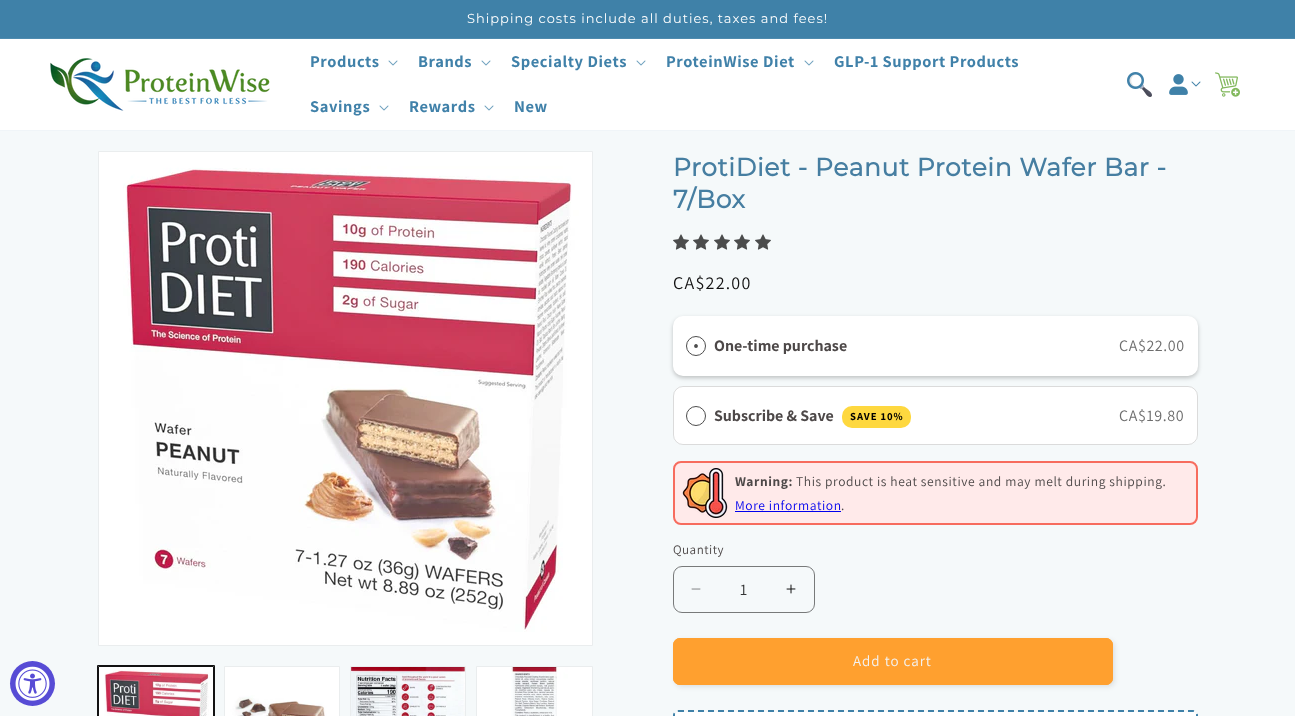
<svg xmlns="http://www.w3.org/2000/svg" width="1295" height="716">
<style>
.a{font:13px Montserrat;letter-spacing:1px;fill:#fff}
.b{font:bold 16.5px Assistant;letter-spacing:0.6px;fill:#4081a9}
.c{font:bold 25px Montserrat;letter-spacing:0.6px;fill:#467ea1}
.d{font:18px Assistant;letter-spacing:1.25px;fill:#121212}
.e{font:bold 16px Assistant;fill:#4d4848}
.f{font:16px Assistant;letter-spacing:0.6px;fill:#6d6d6d}
.g{font:bold 10.75px Assistant;letter-spacing:1px;fill:#000}
.h{font:bold 13.5px Assistant;letter-spacing:0.6px;fill:#4d4848}
.i{font:13.5px Assistant;letter-spacing:0.6px;fill:#4d4848}
.j{font:13.5px Assistant;letter-spacing:0.6px;fill:#00e}
.k{font:13px Assistant;letter-spacing:0.5px;fill:#4d4848}
.l{font:16px Assistant;fill:#343535}
.m{font:15px Assistant;letter-spacing:1px;fill:#f3f3f3}
</style>
<rect width="100%" height="100%" fill="#fff"/>
<path fill="#3f81a8" d="M0 0h1295v38H0z"/>
<path fill="#4e8baf" d="M0 38h1295v1H0z"/>
<path fill="#f0f5f8" d="M0 130h1295v1H0z"/>
<image href="1.png" x="50" y="58" width="220" height="53"/>
<image href="2.png" x="388" y="60" width="10" height="6"/>
<image href="2.png" x="481" y="60" width="10" height="6"/>
<image href="2.png" x="636" y="60" width="10" height="6"/>
<image href="2.png" x="804" y="60" width="10" height="6"/>
<image href="2.png" x="379" y="105" width="10" height="6"/>
<image href="2.png" x="484" y="105" width="10" height="6"/>
<image href="3.png" x="1127" y="72" width="25" height="25"/>
<image href="4.png" x="1169" y="74" width="19" height="21"/>
<image href="5.png" x="1191" y="81" width="10" height="6"/>
<image href="6.png" x="1215" y="72" width="25" height="25"/>
<path fill="#f5f9fa" d="M0 131h1295v585H0z"/>
<path fill="none" stroke="#eaedee" d="M98.5 151.5h494v494H98.5z"/>
<image href="7.png" x="99" y="152" width="493" height="493"/>
<path fill="none" stroke="#121212" d="M97.5 665.5h117v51H97.5z"/>
<path fill="none" stroke="#121212" d="M98.5 666.5h115v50H98.5z"/>
<image href="8.png" x="99" y="667" width="114" height="49"/>
<path fill="none" stroke="#eaedee" d="M224.5 666.5h115v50H224.5z"/>
<image href="9.png" x="225" y="667" width="114" height="49"/>
<path fill="none" stroke="#eaedee" d="M350.5 666.5h115v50H350.5z"/>
<image href="10.png" x="351" y="667" width="114" height="49"/>
<path fill="none" stroke="#eaedee" d="M476.5 666.5h116v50H476.5z"/>
<image href="11.png" x="477" y="667" width="115" height="49"/>
<image href="12.png" x="673" y="234" width="16" height="16"/>
<image href="12.png" x="693" y="234" width="16" height="16"/>
<image href="12.png" x="714" y="234" width="16" height="16"/>
<image href="12.png" x="734" y="234" width="16" height="16"/>
<image href="12.png" x="755" y="234" width="16" height="16"/>
<rect fill="#00000038" filter="blur(2px)" x="673" y="318" width="525" height="60" rx="10"/>
<rect fill="#fff" x="673" y="316" width="525" height="60" rx="10"/>
<circle fill="none" stroke="#4d4d4d" cx="696" cy="346" r="9.5"/>
<path fill="#4d4d4d" d="M696 344c-2.5 0-2.5 4 0 4c2.5 0 2.5-4 0-4z"/>
<rect fill="#fff" x="673" y="386" width="525" height="59" rx="10"/>
<rect fill="none" stroke="#00000024" x="673.5" y="386.5" width="524" height="58" rx="9.5"/>
<circle fill="none" stroke="#4d4d4d" cx="696" cy="416" r="9.5"/>
<rect fill="#fed83f" x="842" y="406" width="69" height="22" rx="10"/>
<rect fill="#ffeaea" stroke="#f76c5e" stroke-width="2" x="674" y="462" width="523" height="62" rx="7"/>
<image href="13.png" x="682" y="468" width="46" height="50"/>
<path fill="#00e" d="M735 511h106v1H735z"/>
<image href="14.png" x="691" y="588" width="10" height="2"/>
<image href="15.png" x="786" y="584" width="10" height="10"/>
<rect fill="none" stroke="#787a7a" x="673.5" y="566.5" width="141" height="46" rx="8.5"/>
<rect fill="#1212121a" filter="blur(2.5px)" x="675" y="640" width="440" height="47" rx="7"/>
<rect fill="#ffa02f" x="673" y="638" width="440" height="47" rx="7"/>
<rect fill="none" stroke="#ffa02f" x="673.5" y="638.5" width="439" height="46" rx="6.5"/>
<path fill="none" stroke="#3f81a8" stroke-width="2" stroke-dasharray="6 4" d="M678 711h515c2 0 4 2 4 4v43c0 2-2 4-4 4h-515c-2 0-4-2-4-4v-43c0-2 2-4 4-4z"/>
<rect fill="#fff" x="675" y="712" width="521" height="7" rx="3"/>
<circle fill="#574cd5" cx="32.5" cy="683.5" r="22.5"/>
<image href="16.png" x="15" y="666" width="35" height="35"/>
<text class="a" x="467" y="23">Shipping costs include all duties, taxes and fees!</text>
<text class="b" x="310" y="67">Products</text>
<text class="b" x="418" y="67">Brands</text>
<text class="b" x="511" y="67">Specialty Diets</text>
<text class="b" x="666" y="67">ProteinWise Diet</text>
<text class="b" x="834" y="67">GLP-1 Support Products</text>
<text class="b" x="310" y="112">Savings</text>
<text class="b" x="409" y="112">Rewards</text>
<text class="b" x="514" y="112">New</text>
<text class="c" x="673" y="176">ProtiDiet - Peanut Protein Wafer Bar -</text>
<text class="c" x="673" y="208">7/Box</text>
<text class="d" x="673" y="289">CA$22.00</text>
<text class="e" x="714" y="351">One-time purchase</text>
<text class="f" x="1119" y="351">CA$22.00</text>
<text class="e" x="714" y="421">Subscribe &amp; Save</text>
<text class="g" x="850" y="420">SAVE 10%</text>
<text class="f" x="1119" y="421">CA$19.80</text>
<text class="h" x="735" y="486">Warning:</text>
<text class="i" x="796" y="486">This product is heat sensitive and may melt during shipping.</text>
<text class="j" x="735" y="510">More information</text>
<text class="i" x="841" y="510">.</text>
<text class="k" x="673" y="554">Quantity</text>
<text class="l" x="740" y="595">1</text>
<text class="m" x="853" y="666">Add to cart</text>
</svg>
